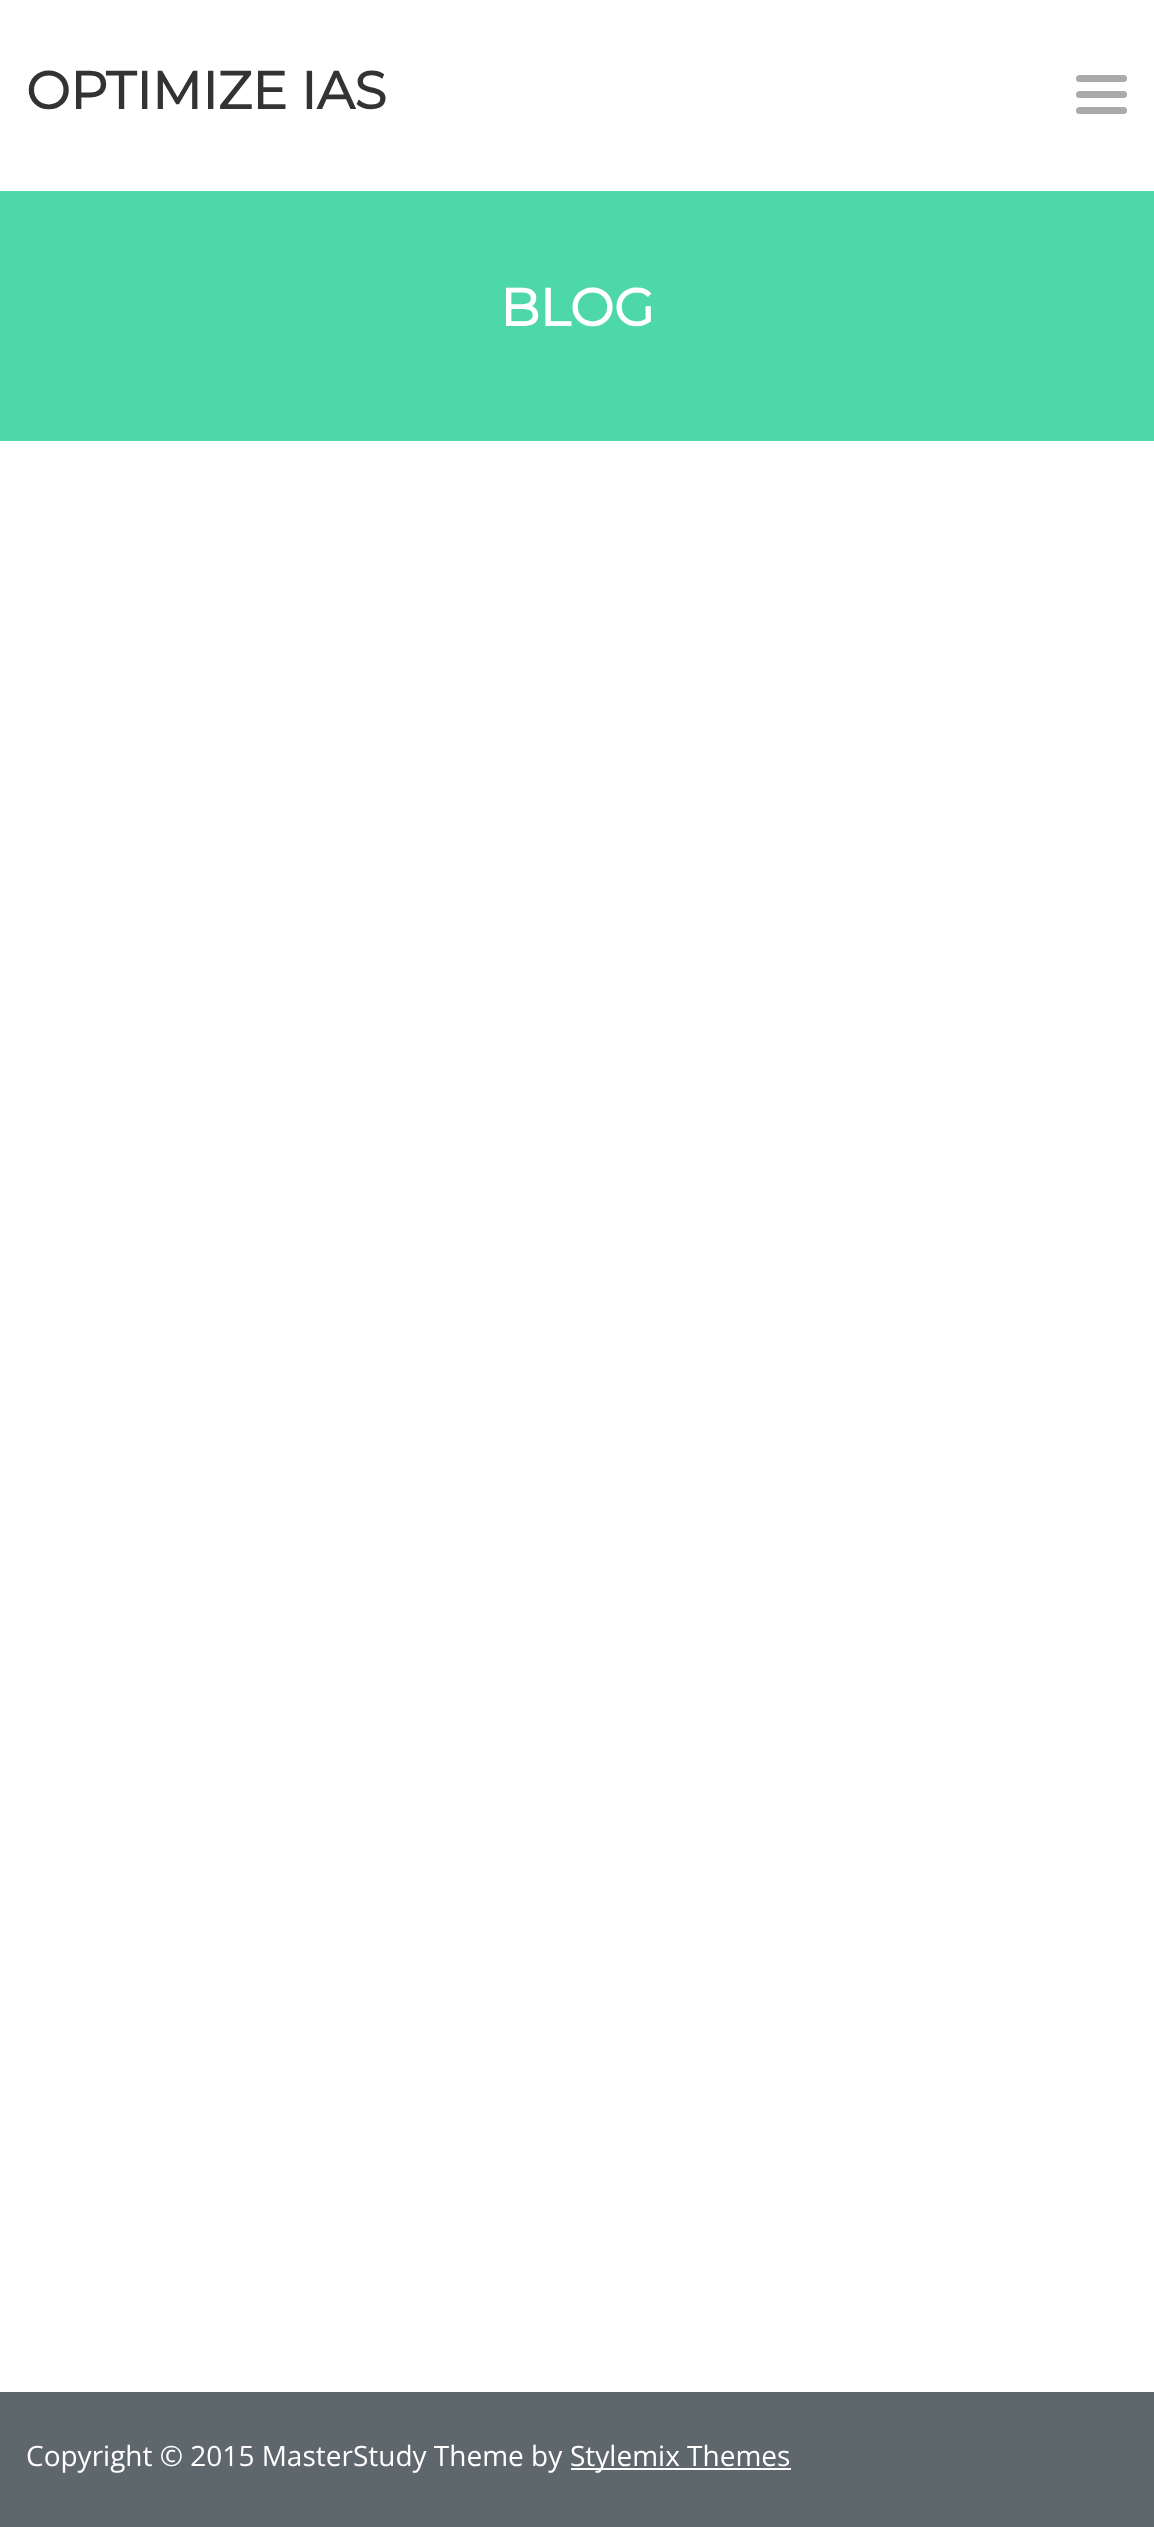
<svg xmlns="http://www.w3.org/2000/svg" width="1154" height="2527">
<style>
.a{font:bold 52.5px Montserrat;fill:#333}
.b{font:bold 52.5px Montserrat;fill:#fff}
.c{font:28px Open Sans;fill:#fff}
</style>
<rect width="100%" height="100%" fill="#fff"/>
<rect fill="#aaa" x="1076" y="75" width="51" height="7" rx="3.5"/>
<rect fill="#aaa" x="1076" y="91" width="51" height="7" rx="3.5"/>
<rect fill="#aaa" x="1076" y="107" width="51" height="7" rx="3.5"/>
<path fill="#4ed7a8" d="M0 191h1154v250H0z"/>
<path fill="#5e676b" d="M0 2392h1154v135H0z"/>
<path fill="#fff" d="M571 2468h220v2H571z"/>
<text class="a" x="26" y="109">OPTIMIZE IAS</text>
<text class="b" x="500" y="326">BLOG</text>
<text class="c" x="26" y="2466">Copyright © 2015 MasterStudy Theme by</text>
<text class="c" x="570" y="2466">Stylemix Themes</text>
</svg>
